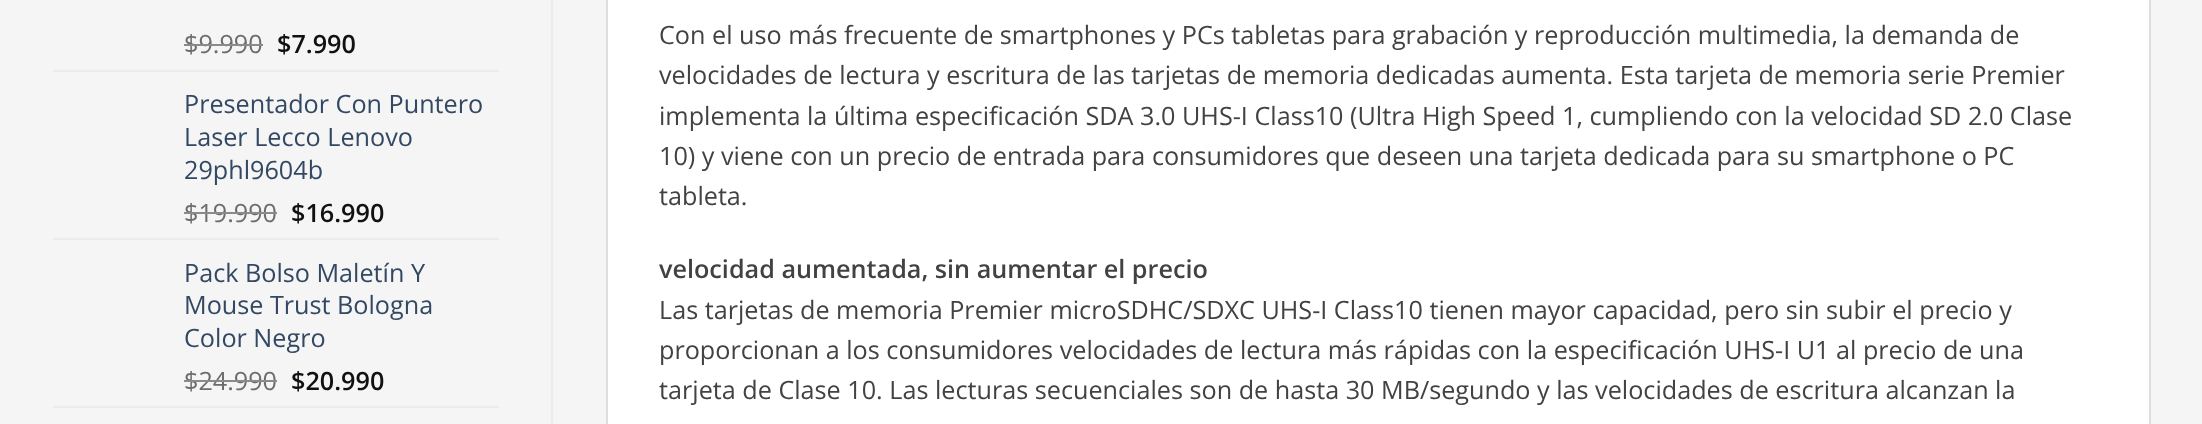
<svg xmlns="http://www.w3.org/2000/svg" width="2202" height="424">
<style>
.a{font:25.2px Open Sans;fill:#6c6c6c}
.b{font:600 25.2px Open Sans;fill:#111}
.c{font:25.2px Open Sans;fill:#334862}
.d{font:25.2px Open Sans;fill:#424242}
.e{font:600 25.2px Open Sans;fill:#424242}
</style>
<rect width="100%" height="100%" fill="#f5f5f5"/>
<path fill="#ececec" d="M53 70h446v2H53z"/>
<path fill="#ececec" d="M53 238h446v2H53z"/>
<path fill="#ececec" d="M53 406h446v2H53z"/>
<path fill="#ececec" d="M551 0h2v424H551z"/>
<path fill="#fff" stroke="#ddd" stroke-width="2" d="M607 -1h1543v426H607z"/>
<text class="a" x="184" y="53">$9.990</text>
<path fill="#8a8a8a" d="M184 44h79v2H184z"/>
<text class="b" x="277" y="53">$7.990</text>
<text class="c" x="184" y="113">Presentador Con Puntero</text>
<text class="c" x="184" y="146">Laser Lecco Lenovo</text>
<text class="c" x="184" y="179">29phl9604b</text>
<text class="a" x="184" y="222">$19.990</text>
<path fill="#8a8a8a" d="M184 212h93v2H184z"/>
<text class="b" x="291" y="222">$16.990</text>
<text class="c" x="184" y="282">Pack Bolso Maletín Y</text>
<text class="c" x="184" y="314">Mouse Trust Bologna</text>
<text class="c" x="184" y="347">Color Negro</text>
<text class="a" x="184" y="390">$24.990</text>
<path fill="#8a8a8a" d="M184 380h93v2H184z"/>
<text class="b" x="291" y="390">$20.990</text>
<text class="d" x="659" y="44">Con el uso más frecuente de smartphones y PCs tabletas para grabación y reproducción multimedia, la demanda de</text>
<text class="d" x="659" y="84">velocidades de lectura y escritura de las tarjetas de memoria dedicadas aumenta. Esta tarjeta de memoria serie Premier</text>
<text class="d" x="659" y="125">implementa la última especificación SDA 3.0 UHS-I Class10 (Ultra High Speed 1, cumpliendo con la velocidad SD 2.0 Clase</text>
<text class="d" x="659" y="165">10) y viene con un precio de entrada para consumidores que deseen una tarjeta dedicada para su smartphone o PC</text>
<text class="d" x="659" y="205">tableta.</text>
<text class="e" x="659" y="278">velocidad aumentada, sin aumentar el precio</text>
<text class="d" x="659" y="319">Las tarjetas de memoria Premier microSDHC/SDXC UHS-I Class10 tienen mayor capacidad, pero sin subir el precio y</text>
<text class="d" x="659" y="359">proporcionan a los consumidores velocidades de lectura más rápidas con la especificación UHS-I U1 al precio de una</text>
<text class="d" x="659" y="399">tarjeta de Clase 10. Las lecturas secuenciales son de hasta 30 MB/segundo y las velocidades de escritura alcanzan la</text>
</svg>
